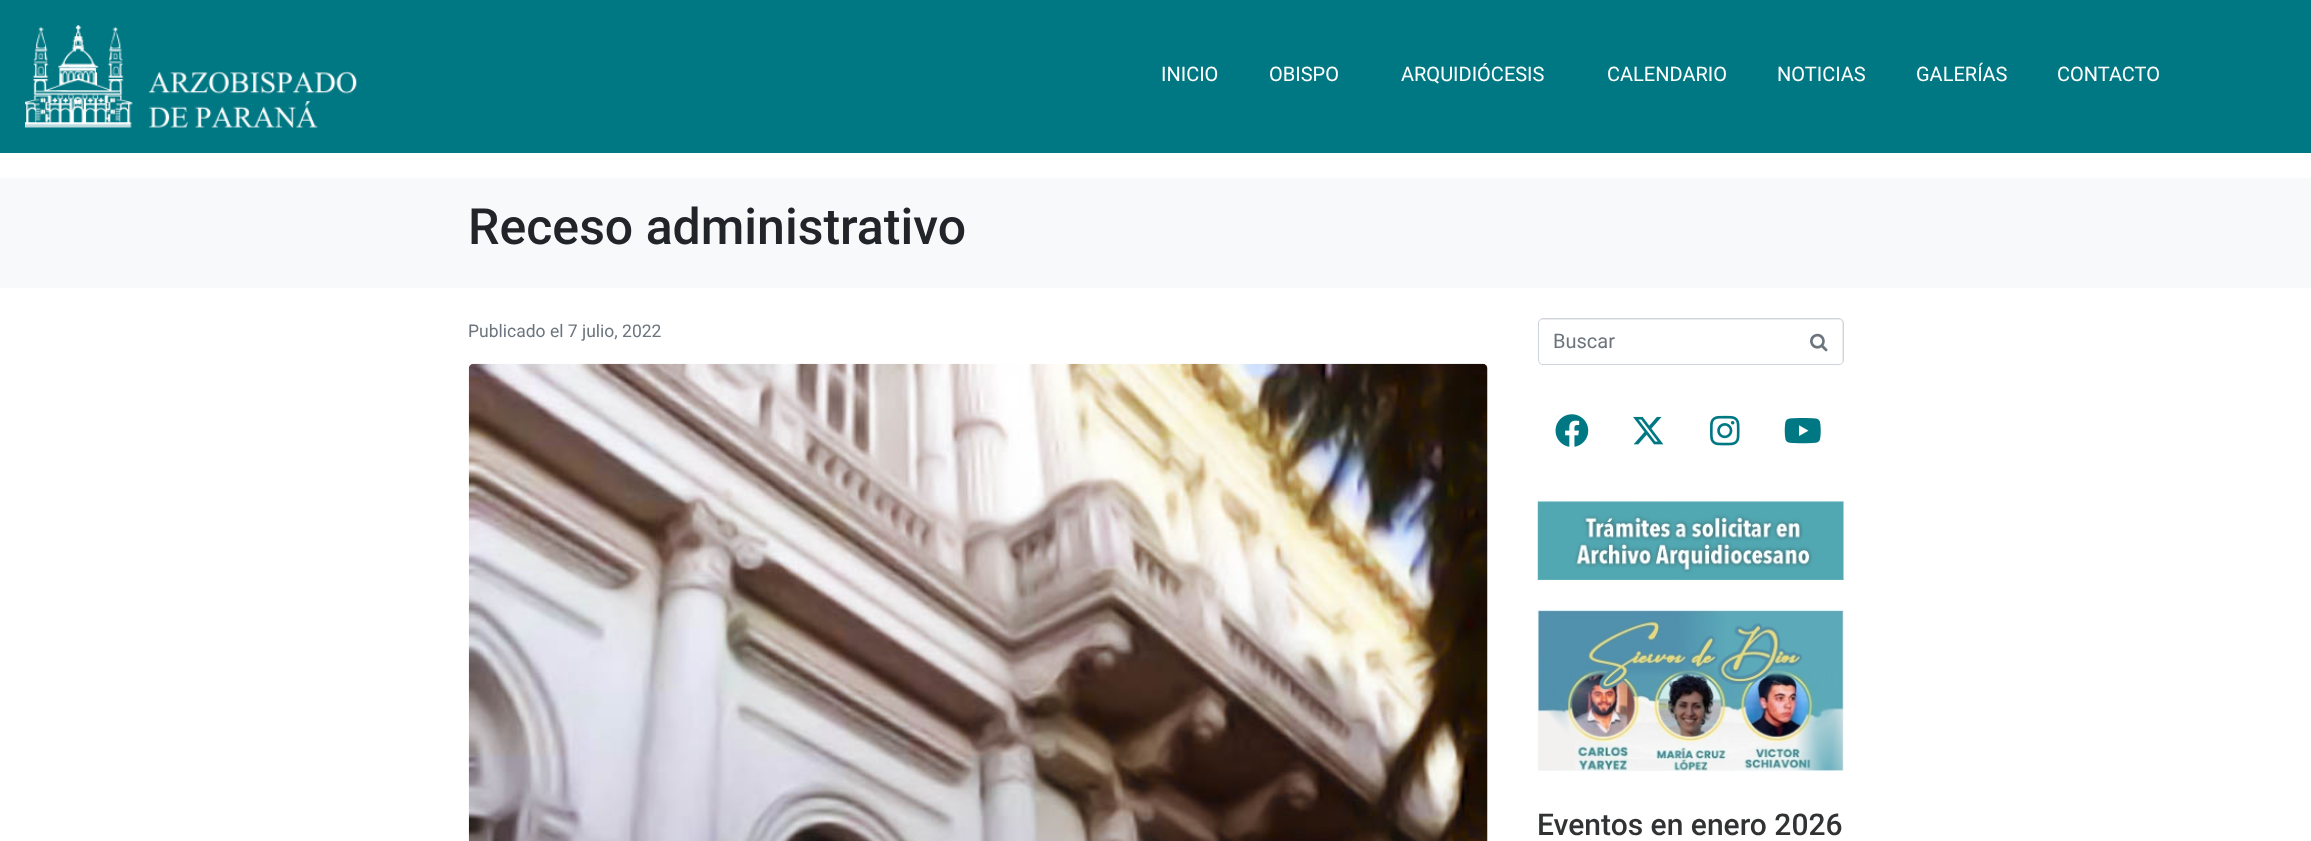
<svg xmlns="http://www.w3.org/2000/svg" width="2311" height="841">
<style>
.a{font:20px Roboto;fill:#fff}
.b{font:500 50px Roboto;fill:#212529}
.c{font:17.5px Roboto;fill:#6c757d}
.d{font:20px Roboto;fill:#6c757d}
.e{font:500 30px Roboto;fill:#313233}
</style>
<rect width="100%" height="100%" fill="#fff"/>
<path fill="#007884" d="M0 0h2311v153H0z"/>
<image href="1.png" x="25" y="25" width="332" height="103"/>
<path fill="#f8f9fa" d="M0 178h2311v110H0z"/>
<image href="2.png" x="468" y="363" width="1020" height="478"/>
<path fill="#ececec" d="M1542 320h297c2 0 3 2 3 4v39c0-1 1-2 1-3v-37c0-2-2-4-4-4h-296c-2 0-4 2-4 4v1c0-2 1-4 3-4z"/>
<rect fill="none" stroke="#ced4da" x="1538.5" y="318.5" width="305" height="46" rx="4.5"/>
<image href="3.png" x="1810" y="333" width="18" height="19"/>
<image href="4.png" x="1555" y="414" width="34" height="33"/>
<image href="5.png" x="1633" y="416" width="31" height="29"/>
<image href="6.png" x="1710" y="415" width="30" height="31"/>
<image href="7.png" x="1784" y="418" width="37" height="26"/>
<image href="8.png" x="1537" y="501" width="307" height="79"/>
<image href="9.png" x="1537" y="610" width="307" height="161"/>
<text class="a" x="1161" y="81">INICIO</text>
<text class="a" x="1269" y="81">OBISPO</text>
<text class="a" x="1401" y="81">ARQUIDIÓCESIS</text>
<text class="a" x="1607" y="81">CALENDARIO</text>
<text class="a" x="1777" y="81">NOTICIAS</text>
<text class="a" x="1916" y="81">GALERÍAS</text>
<text class="a" x="2057" y="81">CONTACTO</text>
<text class="b" x="468" y="244">Receso administrativo</text>
<text class="c" x="468" y="337">Publicado el 7 julio, 2022</text>
<text class="d" x="1553" y="348">Buscar</text>
<text class="e" x="1537" y="835">Eventos en enero 2026</text>
</svg>
